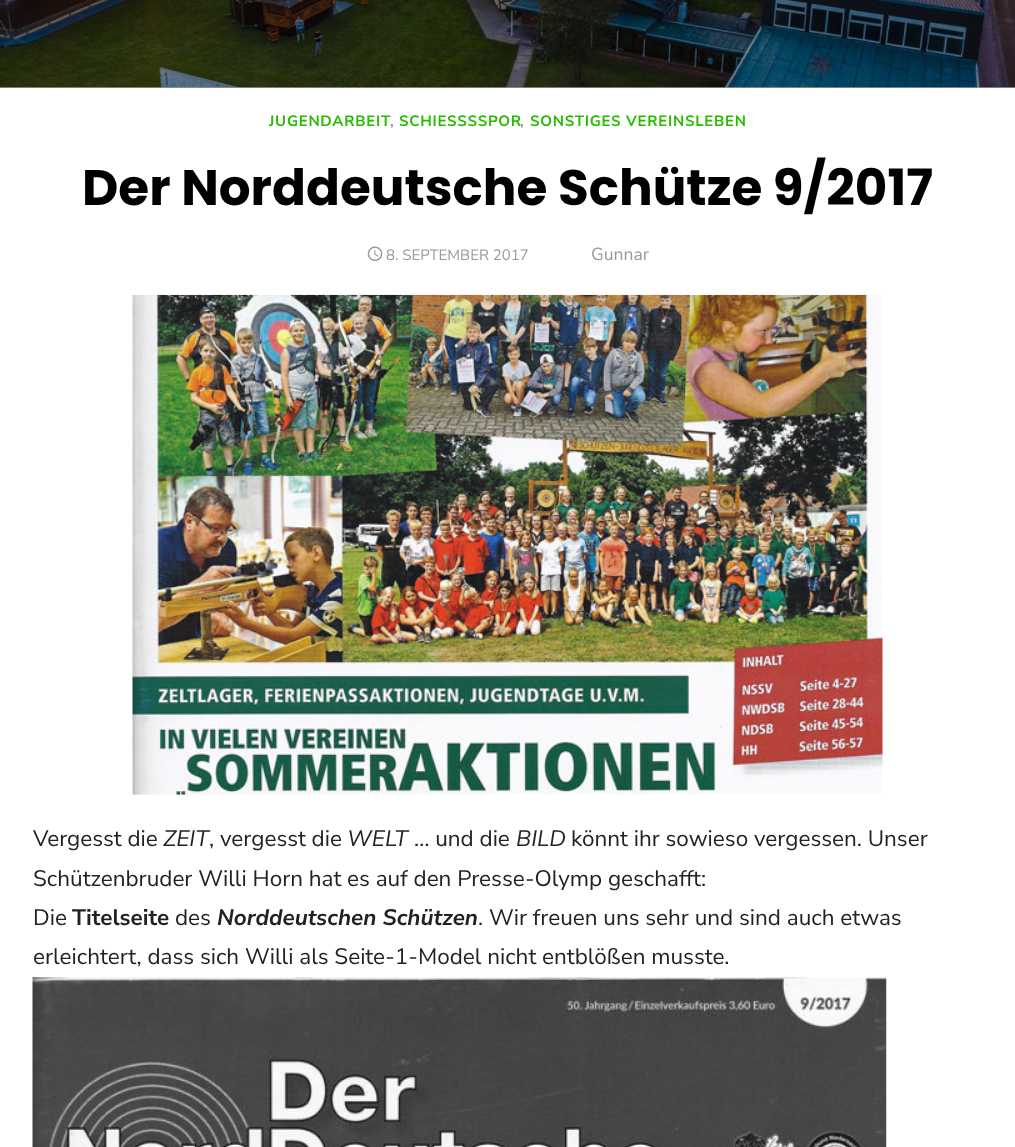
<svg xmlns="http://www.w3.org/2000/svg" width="1015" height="1147">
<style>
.a{font:bold 15px Nunito Sans;letter-spacing:0.75px;fill:#28bc00}
.b{font:bold 15px Nunito Sans;letter-spacing:0.75px;fill:#999}
.c{font:bold 50px Poppins;fill:#000}
.d{font:15px Nunito Sans;fill:#999}
.e{font:17.5px Nunito Sans;fill:#999}
.f{font:22.5px Nunito Sans;fill:#222}
.g{font:italic 22.5px Nunito Sans;fill:#222}
.h{font:bold 22.5px Nunito Sans;fill:#222}
.i{font:italic bold 22.5px Nunito Sans;fill:#222}
</style>
<rect width="100%" height="100%" fill="#fff"/>
<path fill="#999" d="M0 87h1015v1H0z"/>
<image href="1.png" x="0" y="0" width="1015" height="88"/>
<image href="2.png" x="367" y="246" width="16" height="15"/>
<image href="3.png" x="132" y="294" width="751" height="501"/>
<image href="4.png" x="32" y="977" width="855" height="170"/>
<text class="a" x="269" y="126">JUGENDARBEIT</text>
<text class="b" x="390" y="126">,</text>
<text class="a" x="399" y="126">SCHIESSSSPOR</text>
<text class="b" x="520" y="126">,</text>
<text class="a" x="530" y="126">SONSTIGES VEREINSLEBEN</text>
<text class="c" x="82" y="205">Der Norddeutsche Schütze 9/2017</text>
<text class="d" x="386" y="260">8. SEPTEMBER 2017</text>
<text class="e" x="591" y="260">Gunnar</text>
<text class="f" x="33" y="846">Vergesst die</text>
<text class="g" x="163" y="846">ZEIT</text>
<text class="f" x="209" y="846">, vergesst die</text>
<text class="g" x="347" y="846">WELT</text>
<text class="f" x="414" y="846">… und die</text>
<text class="g" x="516" y="846">BILD</text>
<text class="f" x="571" y="846">könnt ihr sowieso vergessen. Unser</text>
<text class="f" x="33" y="886">Schützenbruder Willi Horn hat es auf den Presse-Olymp geschafft:</text>
<text class="f" x="33" y="925">Die</text>
<text class="h" x="72" y="925">Titelseite</text>
<text class="f" x="175" y="925">des</text>
<text class="i" x="217" y="925">Norddeutschen Schützen</text>
<text class="f" x="478" y="925">. Wir freuen uns sehr und sind auch etwas</text>
<text class="f" x="33" y="964">erleichtert, dass sich Willi als Seite-1-Model nicht entblößen musste.</text>
</svg>
